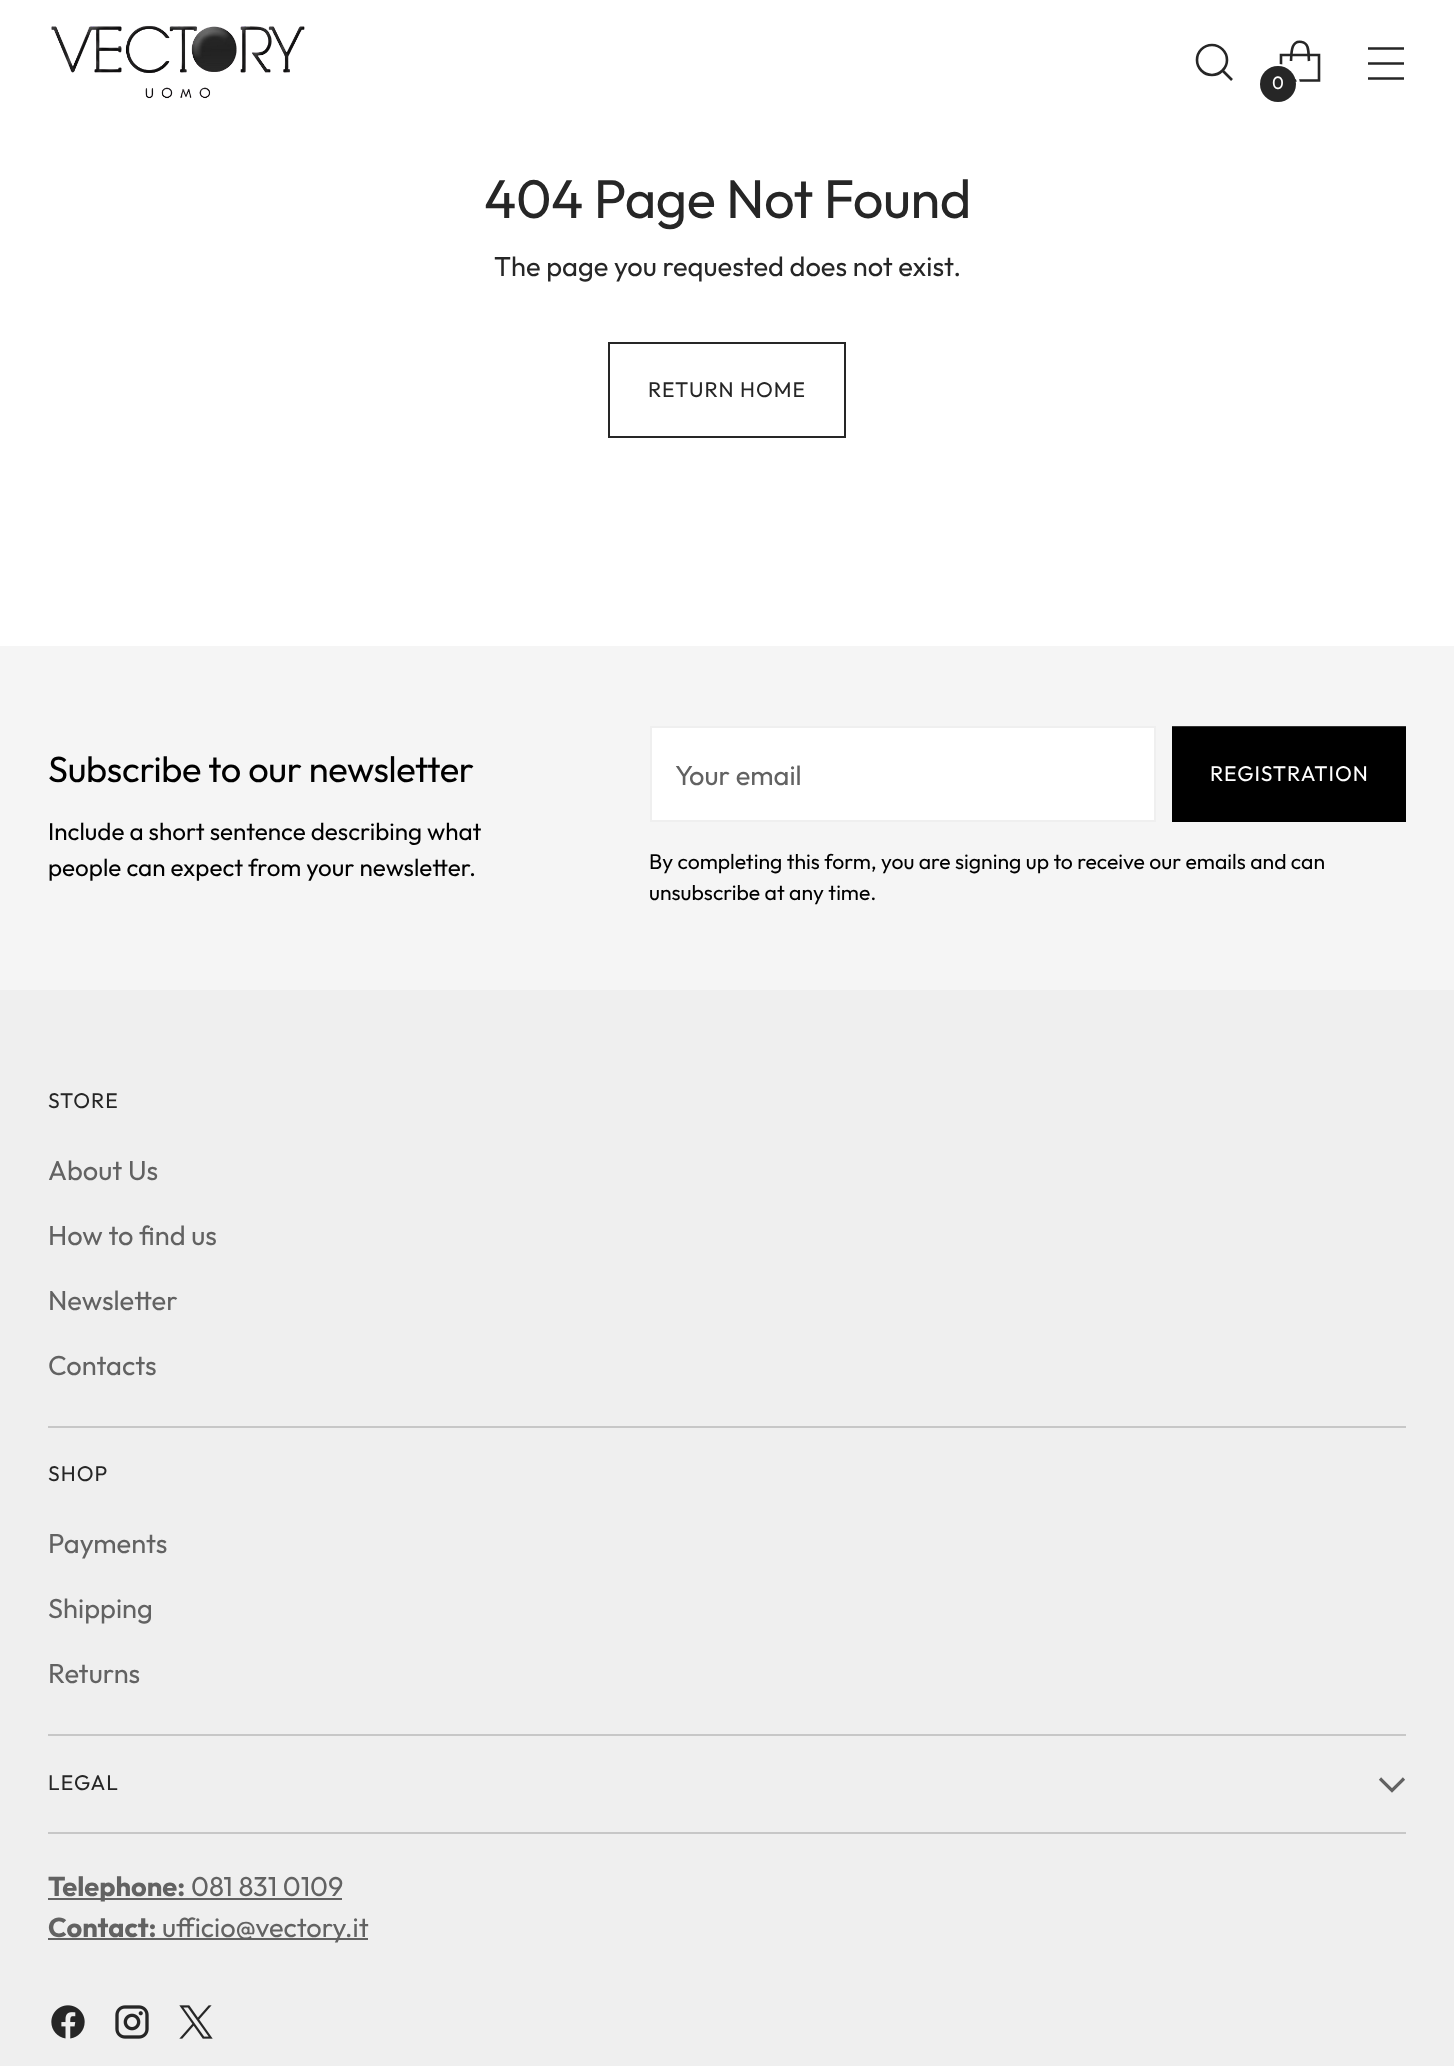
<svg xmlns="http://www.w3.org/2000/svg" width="1454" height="2066">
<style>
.a{font:18px Outfit;fill:#fff}
.b{font:54.25px Outfit;letter-spacing:-0.5px;fill:#262626}
.c{font:27.25px Outfit;fill:#262626}
.d{font:21.2px Outfit;letter-spacing:1px;fill:#262626}
.e{font:36.25px Outfit;letter-spacing:-0.35px;fill:#000}
.f{font:24.25px Outfit;fill:#000}
.g{font:27.25px Outfit;fill:#626262}
.h{font:21.2px Outfit;letter-spacing:1px;fill:#fff}
.i{font:21.2px Outfit;fill:#000}
.j{font:bold 27.25px Outfit;fill:#626262}
</style>
<defs>
<clipPath id="clip1"><path d="M1172 726h234v96H1172z"/></clipPath>
</defs>
<rect width="100%" height="100%" fill="#fff"/>
<image href="1.png" x="51" y="25" width="254" height="74"/>
<path fill="none" stroke="#262626" stroke-width="2.6" stroke-linecap="round" d="M1212 75c8 0 15-7 15-15c0-8.5-7-15-15-15c-8.5 0-15 6.5-15 15c0 8 6.5 15 15 15z"/>
<path fill="none" stroke="#262626" stroke-width="2.6" d="M1222.5 70.5l9.5 9.5"/>
<path fill="none" stroke="#262626" stroke-width="2.6" d="M1368 63.5h36m-36-15h36m-36 30h36"/>
<path fill="none" stroke="#262626" stroke-width="2.6" stroke-linejoin="bevel" d="M1309 61c-.5-4.5 0-9.5-1.5-14c-1-2.5-3-4.5-5.5-5c-11.5-2.5-10.5 12-11 19"/>
<path fill="none" stroke="#262626" stroke-width="2.6" d="M1319 80.5v-25.5h-38v25.5z"/>
<circle fill="none" stroke="#fff" stroke-width="3" cx="1279" cy="85" r="19.5"/>
<circle fill="#262626" cx="1278" cy="84" r="18"/>
<path fill="none" stroke="#262626" stroke-width="2" d="M609 343h236v94H609z"/>
<path fill="#f5f5f5" d="M0 646h1454v344H0z"/>
<path fill="#fff" stroke="#efefef" stroke-width="2" d="M651 727h504v94H651z"/>
<path fill="#333" d="M1172 726h234v1H1172z"/>
<g clip-path="url(#clip1)">
<path fill="#000" d="M1098 727h327l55 96h-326z"/>
</g>
<path fill="#efefef" d="M0 990h1454v1076H0z"/>
<path fill="#c7c7c7" d="M48 1426h1358v2H48z"/>
<path fill="#c7c7c7" d="M48 1734h1358v2H48z"/>
<path fill="#c7c7c7" d="M48 1832h1358v2H48z"/>
<path fill="none" stroke="#626262" stroke-width="3.2" d="M1380 1778.5l12 12l12-12"/>
<path fill="#626262" d="M48 1898h294v2H48z"/>
<path fill="#626262" d="M48 1938h320v2H48z"/>
<image href="2.png" x="51" y="2005" width="34" height="34"/>
<image href="3.png" x="115" y="2005" width="34" height="34"/>
<image href="4.png" x="179" y="2005" width="34" height="34"/>
<text class="a" x="1272" y="89">0</text>
<text class="b" x="484" y="218">404 Page Not Found</text>
<text class="c" x="494" y="276">The page you requested does not exist.</text>
<text class="d" x="648" y="397">RETURN HOME</text>
<text class="e" x="48" y="782">Subscribe to our newsletter</text>
<text class="f" x="48" y="840">Include a short sentence describing what</text>
<text class="f" x="48" y="876">people can expect from your newsletter.</text>
<text class="g" x="675" y="785">Your email</text>
<text class="h" x="1210" y="781">REGISTRATION</text>
<text class="i" x="649" y="869">By completing this form, you are signing up to receive our emails and can</text>
<text class="i" x="649" y="900">unsubscribe at any time.</text>
<text class="d" x="48" y="1108">STORE</text>
<text class="g" x="48" y="1180">About Us</text>
<text class="g" x="48" y="1245">How to find us</text>
<text class="g" x="48" y="1310">Newsletter</text>
<text class="g" x="48" y="1375">Contacts</text>
<text class="d" x="48" y="1481">SHOP</text>
<text class="g" x="48" y="1553">Payments</text>
<text class="g" x="48" y="1618">Shipping</text>
<text class="g" x="48" y="1683">Returns</text>
<text class="d" x="48" y="1790">LEGAL</text>
<text class="j" x="48" y="1896">Telephone:</text>
<text class="g" x="191" y="1896">081 831 0109</text>
<text class="j" x="48" y="1937">Contact:</text>
<text class="g" x="162" y="1937">ufficio@vectory.it</text>
</svg>
